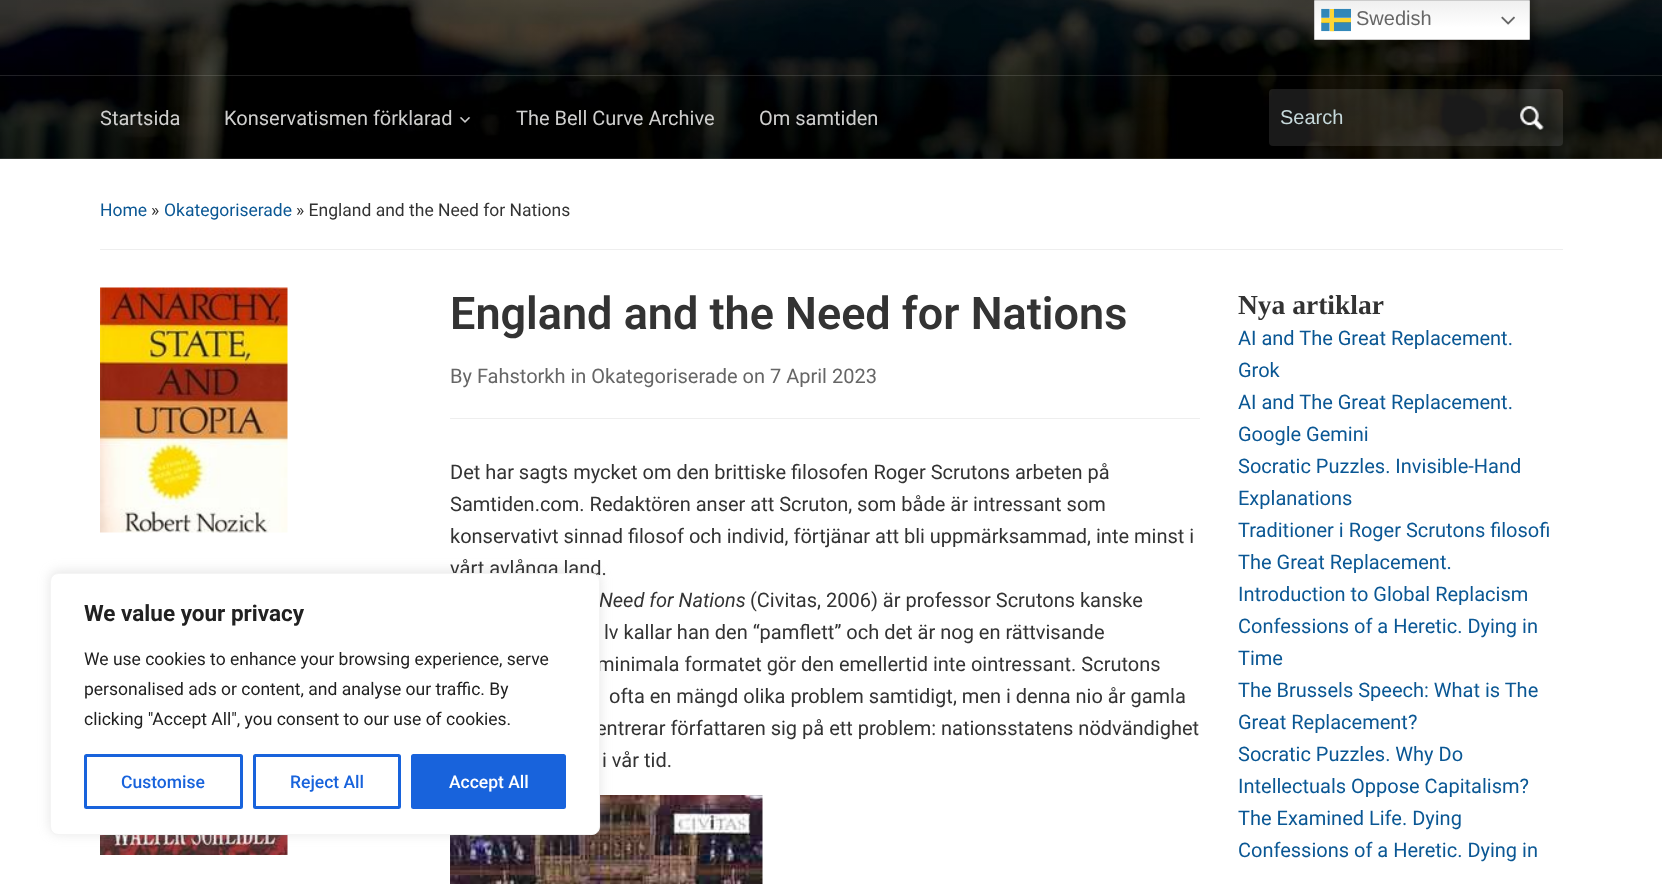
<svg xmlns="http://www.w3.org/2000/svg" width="1662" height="884">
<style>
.a{font:20px Liberation Sans;fill:#666}
.b{font:20px Roboto;fill:#cfcfce}
.c{font:20px Liberation Sans;fill:#c6d9db}
.d{font:17.5px Roboto;fill:#0a5794}
.e{font:17.5px Roboto;fill:#333}
.f{font:600 45px Roboto;fill:#333}
.g{font:20px Roboto;fill:#666}
.h{font:20px Roboto;fill:#333}
.i{font:italic 20px Roboto;fill:#333}
.j{font:bold 27.5px Liberation Serif;fill:#333}
.k{font:20px Roboto;fill:#0a5794}
.l{font:bold 22.5px Roboto;fill:#212121}
.m{font:17.5px Roboto;fill:#212121}
.n{font:500 17.5px Roboto;fill:#1863dc}
.o{font:500 17.5px Roboto;fill:#fff}
</style>
<defs>
<linearGradient id="g1" gradientUnits="userSpaceOnUse" x1="831" y1="0" x2="831" y2="159"><stop offset="0" stop-color="#000" stop-opacity="0.3"/><stop offset="1" stop-color="#000" stop-opacity="0.5"/></linearGradient>
<linearGradient id="g2" gradientUnits="userSpaceOnUse" x1="1422" y1="0" x2="1422" y2="40"><stop offset="0" stop-color="#efefef"/><stop offset="0.7" stop-color="#fff"/></linearGradient>
</defs>
<rect width="100%" height="100%" fill="#fff"/>
<image href="3.png" x="0" y="0" width="1662" height="159"/>
<path fill="url(#g1)" d="M0 0h1662v159H0z"/>
<path fill="url(#g2)" d="M1315 1h214v38H1315z"/>
<path fill="none" stroke="#ccc" d="M1314.5 0.5h215v39H1314.5z"/>
<image href="1.png" x="1321" y="8" width="30" height="24"/>
<image href="2.png" x="1501" y="16" width="14" height="9"/>
<path fill="#ffffff21" d="M0 75h1662v1H0z"/>
<image href="4.png" x="459" y="117" width="12" height="6"/>
<rect fill="#ffffff1a" x="1269" y="89" width="294" height="57" rx="4"/>
<image href="5.png" x="1520" y="106" width="24" height="24"/>
<path fill="#eee" d="M100 249h1463v1H100z"/>
<image href="6.png" x="100" y="287" width="188" height="246"/>
<image href="7.png" x="100" y="835" width="188" height="20"/>
<path fill="#eee" d="M450 418h750v1H450z"/>
<image href="8.png" x="450" y="795" width="313" height="89"/>
<rect fill="#acabab4d" filter="blur(6px)" x="50" y="571" width="550" height="263" rx="8"/>
<text class="a" x="1356" y="25">Swedish</text>
<text class="b" x="100" y="125">Startsida</text>
<text class="b" x="224" y="125">Konservatismen förklarad</text>
<text class="b" x="516" y="125">The Bell Curve Archive</text>
<text class="b" x="759" y="125">Om samtiden</text>
<text class="c" x="1280" y="124">Search</text>
<text class="d" x="100" y="216">Home</text>
<text class="e" x="151" y="216">»</text>
<text class="d" x="164" y="216">Okategoriserade</text>
<text class="e" x="296" y="216">» England and the Need for Nations</text>
<text class="f" x="450" y="329">England and the Need for Nations</text>
<text class="g" x="450" y="383">By Fahstorkh in Okategoriserade on 7 April 2023</text>
<text class="h" x="450" y="479">Det har sagts mycket om den brittiske filosofen Roger Scrutons arbeten på</text>
<text class="h" x="450" y="511">Samtiden.com. Redaktören anser att Scruton, som både är intressant som</text>
<text class="h" x="450" y="543">konservativt sinnad filosof och individ, förtjänar att bli uppmärksammad, inte minst i</text>
<text class="h" x="450" y="575">vårt avlånga land.</text>
<text class="i" x="599" y="607">Need for Nations</text>
<text class="h" x="750" y="607">(Civitas, 2006) är professor Scrutons kanske</text>
<text class="h" x="604" y="639">lv kallar han den “pamflett” och det är nog en rättvisande</text>
<text class="h" x="597" y="671">minimala formatet gör den emellertid inte ointressant. Scrutons</text>
<text class="h" x="609" y="703">ofta en mängd olika problem samtidigt, men i denna nio år gamla</text>
<text class="h" x="596" y="735">entrerar författaren sig på ett problem: nationsstatens nödvändighet</text>
<text class="h" x="602" y="767">i vår tid.</text>
<text class="j" x="1238" y="314">Nya artiklar</text>
<text class="k" x="1238" y="345">AI and The Great Replacement.</text>
<text class="k" x="1238" y="377">Grok</text>
<text class="k" x="1238" y="409">AI and The Great Replacement.</text>
<text class="k" x="1238" y="441">Google Gemini</text>
<text class="k" x="1238" y="473">Socratic Puzzles. Invisible-Hand</text>
<text class="k" x="1238" y="505">Explanations</text>
<text class="k" x="1238" y="537">Traditioner i Roger Scrutons filosofi</text>
<text class="k" x="1238" y="569">The Great Replacement.</text>
<text class="k" x="1238" y="601">Introduction to Global Replacism</text>
<text class="k" x="1238" y="633">Confessions of a Heretic. Dying in</text>
<text class="k" x="1238" y="665">Time</text>
<text class="k" x="1238" y="697">The Brussels Speech: What is The</text>
<text class="k" x="1238" y="729">Great Replacement?</text>
<text class="k" x="1238" y="761">Socratic Puzzles. Why Do</text>
<text class="k" x="1238" y="793">Intellectuals Oppose Capitalism?</text>
<text class="k" x="1238" y="825">The Examined Life. Dying</text>
<text class="k" x="1238" y="857">Confessions of a Heretic. Dying in</text>
<rect fill="#fff" stroke="#f4f4f4" x="50.5" y="573.5" width="549" height="261" rx="7.5"/>
<text class="l" x="84" y="621">We value your privacy</text>
<text class="m" x="84" y="665">We use cookies to enhance your browsing experience, serve</text>
<text class="m" x="84" y="695">personalised ads or content, and analyse our traffic. By</text>
<text class="m" x="84" y="725">clicking "Accept All", you consent to our use of cookies.</text>
<rect fill="none" stroke="#1863dc" stroke-width="3" x="85.5" y="755.5" width="156" height="52" rx="1"/>
<text class="n" x="121" y="788">Customise</text>
<rect fill="none" stroke="#1863dc" stroke-width="3" x="254.5" y="755.5" width="145" height="52" rx="1"/>
<text class="n" x="290" y="788">Reject All</text>
<rect fill="#1863dc" stroke="#1863dc" stroke-width="3" x="412.5" y="755.5" width="152" height="52" rx="1"/>
<text class="o" x="449" y="788">Accept All</text>
</svg>
